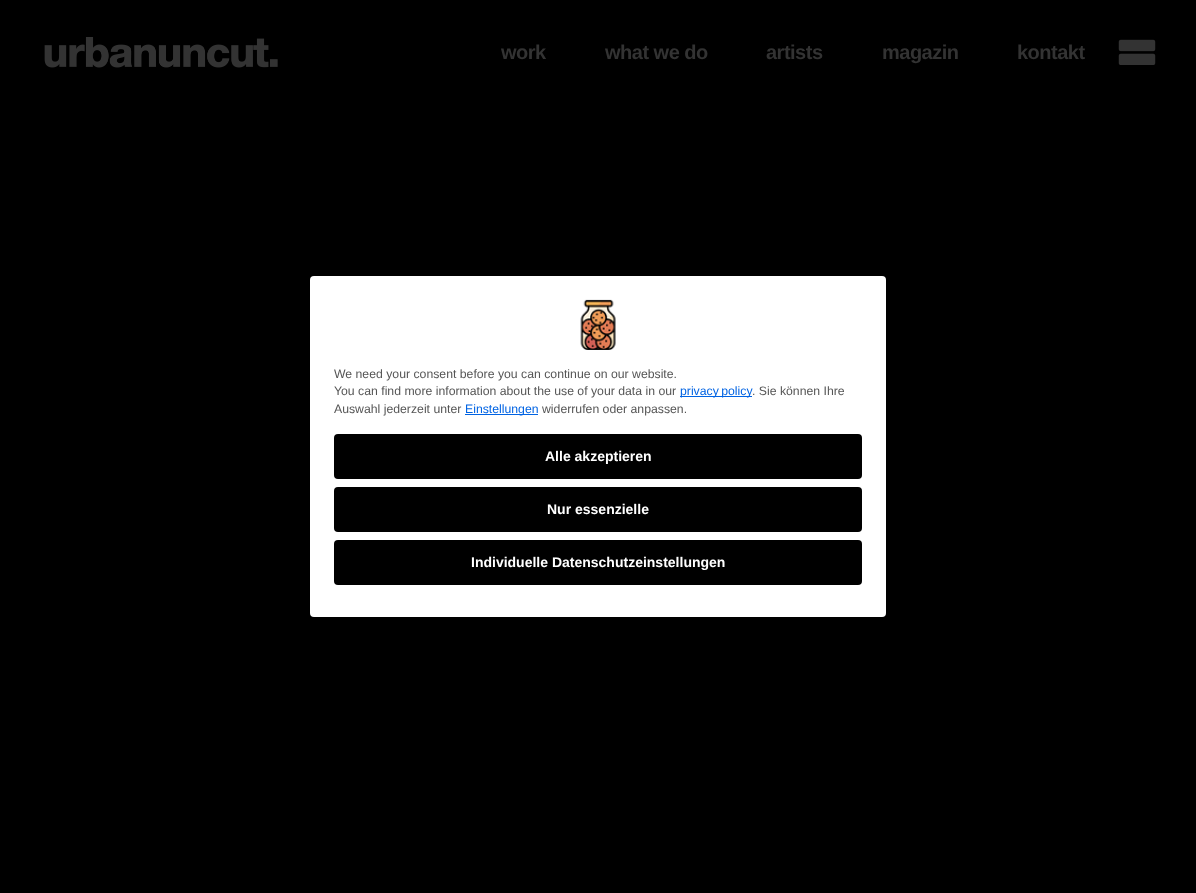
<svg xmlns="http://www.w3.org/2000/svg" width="1196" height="893">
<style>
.a{font:bold 20px Liberation Sans;letter-spacing:-0.5px;fill:#333}
.b{font:12.25px Liberation Sans;fill:#555}
.c{font:12.25px Liberation Sans;fill:#0063e3}
.d{font:bold 14px Liberation Sans;fill:#fff}
</style>
<rect width="100%" height="100%" fill="#000"/>
<image href="1.png" x="44" y="37" width="234" height="31"/>
<image href="2.png" x="1118" y="39" width="38" height="26"/>
<rect fill="#fff" x="310" y="276" width="576" height="341" rx="4"/>
<image href="3.png" x="580" y="299" width="36" height="51"/>
<path fill="#0063e3" d="M680 396h72v1H680z"/>
<path fill="#0063e3" d="M465 414h73v1H465z"/>
<rect fill="#000" x="334" y="434" width="528" height="45" rx="4"/>
<rect fill="#000" x="334" y="487" width="528" height="45" rx="4"/>
<rect fill="#000" x="334" y="540" width="528" height="45" rx="4"/>
<text class="a" x="501" y="59">work</text>
<text class="a" x="605" y="59">what we do</text>
<text class="a" x="766" y="59">artists</text>
<text class="a" x="882" y="59">magazin</text>
<text class="a" x="1017" y="59">kontakt</text>
<text class="b" x="334" y="378">We need your consent before you can continue on our website.</text>
<text class="b" x="334" y="395">You can find more information about the use of your data in our</text>
<text class="c" x="680" y="395" word-spacing="-1">privacy policy</text>
<text class="b" x="752" y="395">. Sie können Ihre</text>
<text class="b" x="334" y="413">Auswahl jederzeit unter</text>
<text class="c" x="465" y="413">Einstellungen</text>
<text class="b" x="542" y="413">widerrufen oder anpassen.</text>
<text class="d" x="545" y="461">Alle akzeptieren</text>
<text class="d" x="547" y="514">Nur essenzielle</text>
<text class="d" x="471" y="567">Individuelle Datenschutzeinstellungen</text>
</svg>
